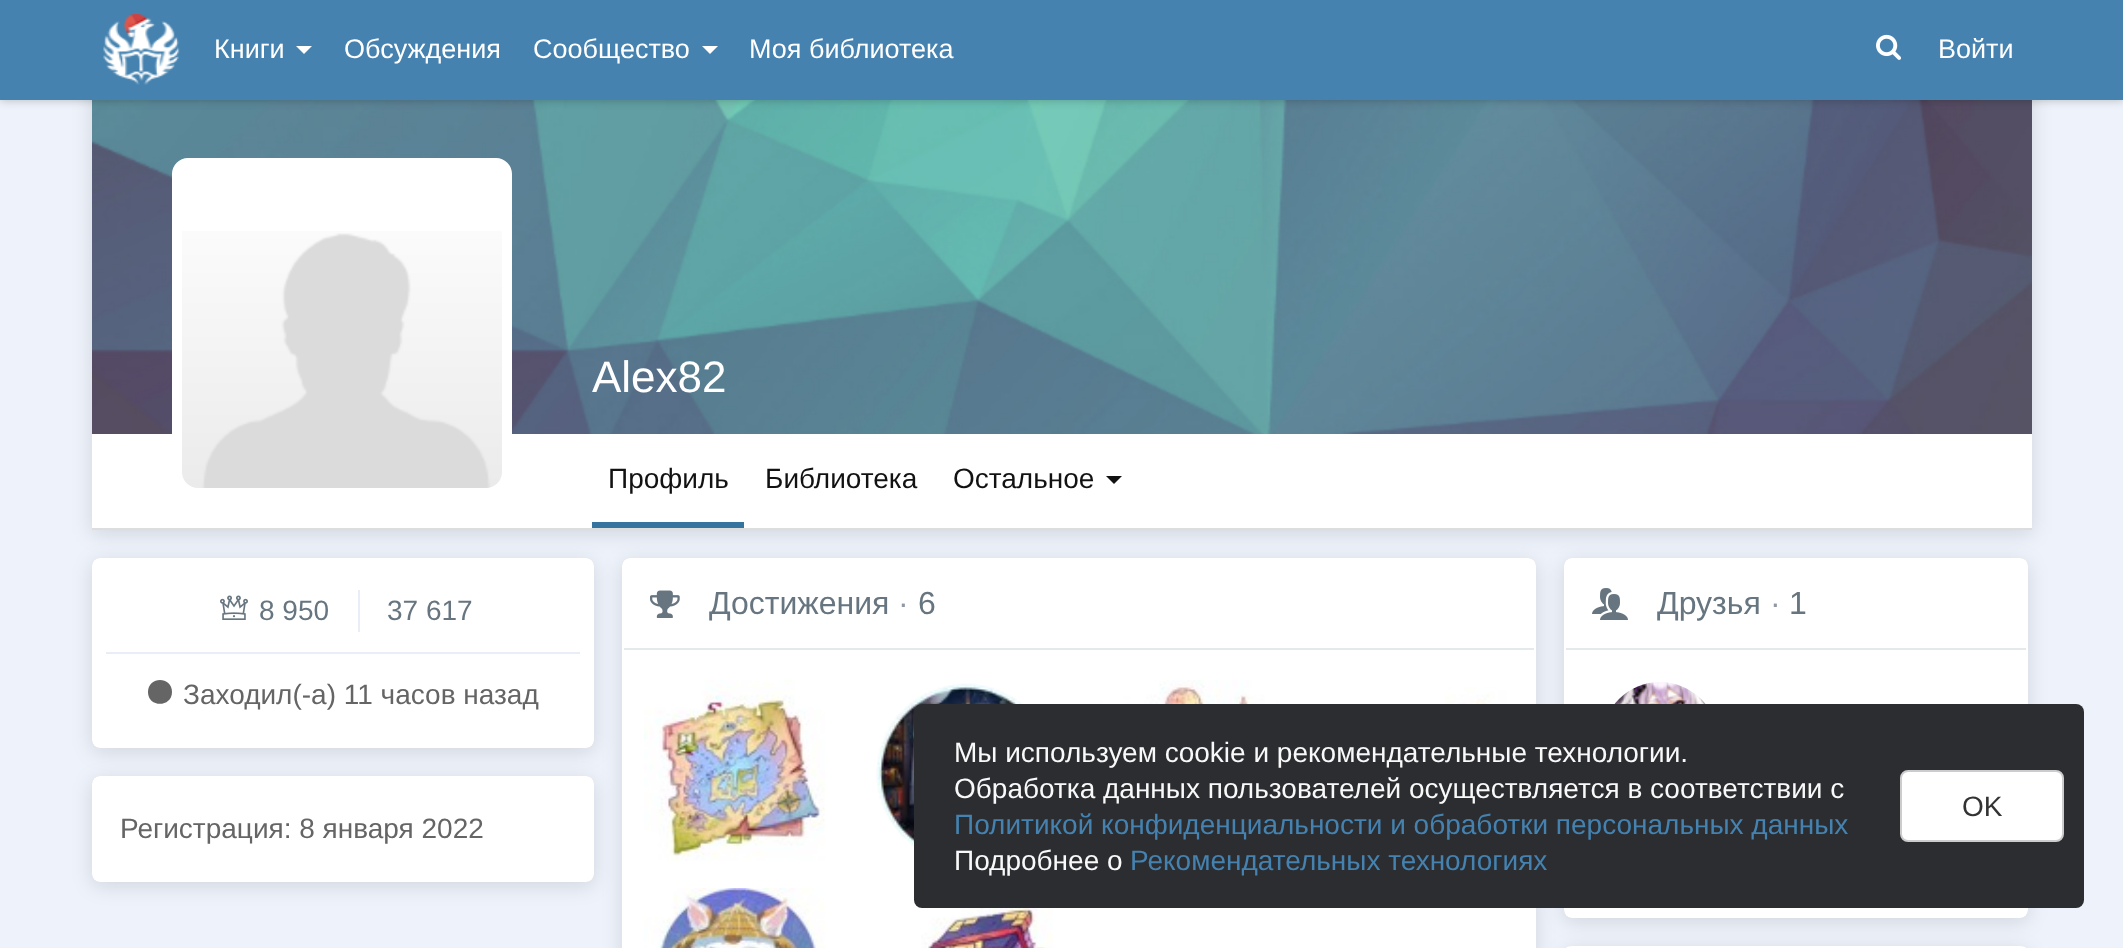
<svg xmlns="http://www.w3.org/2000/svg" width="2123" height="948">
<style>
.a{font:27px Liberation Sans;fill:#fff}
.b{font:44px Liberation Sans;fill:#fff}
.c{font:28px Liberation Sans;fill:#121212}
.d{font:28px Liberation Sans;fill:#66757f}
.e{font:28px Liberation Sans;fill:#656565}
.f{font:32px Liberation Sans;fill:#66757f}
.g{font:32px Liberation Sans;fill:#9197a3}
.h{font:28px Liberation Sans;fill:#f9f9f9}
.i{font:28px Liberation Sans;fill:#4582af}
.j{font:28px Liberation Sans;fill:#333}
</style>
<rect width="100%" height="100%" fill="#eef3fb"/>
<path fill="#0000001f" filter="blur(10px)" d="M92 -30h1940v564H92z"/>
<image href="3.png" x="92" y="100" width="1940" height="334"/>
<path fill="#00000040" filter="blur(5px)" d="M0 0h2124v100H0z"/>
<path fill="#4582af" d="M0 0h2123v100H0z"/>
<image href="1.png" x="103" y="14" width="77" height="71"/>
<path fill="#fff" d="M296 46h16l-8 8z"/>
<path fill="#fff" d="M702 46h16l-8 8z"/>
<image href="2.png" x="1876" y="34" width="25" height="26"/>
<path fill="#ddd" d="M92 528h1940v2H92z"/>
<path fill="#fff" d="M92 434h1940v94H92z"/>
<rect fill="#fff" stroke="#fff" stroke-width="10" x="177" y="163" width="330" height="330" rx="11"/>
<image href="4.png" x="182" y="231" width="320" height="257"/>
<path fill="#34749e" d="M592 522h152v6H592z"/>
<path fill="#121212" d="M1106 476h16l-8 8z"/>
<rect fill="#0000001f" filter="blur(10px)" x="92" y="562" width="502" height="190" rx="8"/>
<rect fill="#0000001f" filter="blur(0.5px)" x="92" y="558" width="502" height="190" rx="8"/>
<rect fill="#fff" x="92" y="558" width="502" height="190" rx="8"/>
<path fill="#e9edf8" d="M106 652h474v2H106z"/>
<image href="5.png" x="220" y="595" width="28" height="25"/>
<path fill="#e9edf8" d="M358 590h2v42H358z"/>
<path fill="#656565" d="M172 692c0 15.5-24 16-24 0c0-16 24-16 24 0z"/>
<rect fill="#0000001f" filter="blur(10px)" x="92" y="780" width="502" height="106" rx="8"/>
<rect fill="#0000001f" filter="blur(0.5px)" x="92" y="776" width="502" height="106" rx="8"/>
<rect fill="#fff" x="92" y="776" width="502" height="106" rx="8"/>
<rect fill="#0000001f" filter="blur(10px)" x="622" y="562" width="914" height="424" rx="8"/>
<rect fill="#0000001f" filter="blur(0.5px)" x="622" y="558" width="914" height="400" rx="8"/>
<rect fill="#fff" x="622" y="558" width="914" height="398" rx="8"/>
<rect fill="#0000001f" filter="blur(10px)" x="1564" y="562" width="464" height="360" rx="8"/>
<path fill="#e4eaec" d="M624 648h910v2H624z"/>
<image href="6.png" x="650" y="590" width="30" height="28"/>
<image href="7.png" x="644" y="680" width="181" height="181"/>
<image href="8.png" x="876" y="683" width="147" height="165"/>
<image href="9.png" x="1100" y="680" width="186" height="24"/>
<image href="10.png" x="1326" y="687" width="188" height="17"/>
<image href="11.png" x="644" y="888" width="181" height="60"/>
<image href="12.png" x="921" y="907" width="132" height="41"/>
<rect fill="#0000001f" filter="blur(0.5px)" x="1564" y="558" width="464" height="360" rx="8"/>
<rect fill="#fff" x="1564" y="558" width="464" height="360" rx="8"/>
<path fill="#e4eaec" d="M1566 648h460v2H1566z"/>
<image href="13.png" x="1592" y="588" width="36" height="32"/>
<image href="14.png" x="1614" y="682" width="92" height="22"/>
<rect fill="#0000001f" filter="blur(10px)" x="1564" y="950" width="464" height="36" rx="8"/>
<rect fill="#0000001f" filter="blur(0.5px)" x="1564" y="946" width="464" height="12" rx="8"/>
<rect fill="#fff" x="1564" y="946" width="464" height="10" rx="8"/>
<rect fill="#2b2d31" x="914" y="704" width="1170" height="204" rx="8"/>
<rect fill="#fff" stroke="#ccc" stroke-width="2" x="1901" y="771" width="162" height="70" rx="7"/>
<text class="a" x="214" y="58">Книги</text>
<text class="a" x="344" y="58">Обсуждения</text>
<text class="a" x="533" y="58">Сообщество</text>
<text class="a" x="749" y="58">Моя библиотека</text>
<text class="a" x="1938" y="58">Войти</text>
<text class="b" x="592" y="392">Alex82</text>
<text class="c" x="608" y="488">Профиль</text>
<text class="c" x="765" y="488">Библиотека</text>
<text class="c" x="953" y="488">Остальное</text>
<text class="d" x="259" y="620">8 950</text>
<text class="d" x="387" y="620">37 617</text>
<text class="e" x="183" y="704">Заходил(-a) 11 часов назад</text>
<text class="e" x="120" y="838">Регистрация: 8 января 2022</text>
<text class="f" x="709" y="614">Достижения</text>
<text class="g" x="898" y="614">·</text>
<text class="f" x="918" y="614">6</text>
<text class="f" x="1657" y="614">Друзья</text>
<text class="g" x="1770" y="614">·</text>
<text class="f" x="1789" y="614">1</text>
<text class="h" x="954" y="762">Мы используем cookie и рекомендательные технологии.</text>
<text class="h" x="954" y="798">Обработка данных пользователей осуществляется в соответствии с</text>
<text class="i" x="954" y="834">Политикой конфиденциальности и обработки персональных данных</text>
<text class="h" x="954" y="870">Подробнее о</text>
<text class="i" x="1130" y="870">Рекомендательных технологиях</text>
<text class="j" x="1962" y="816">OK</text>
</svg>
